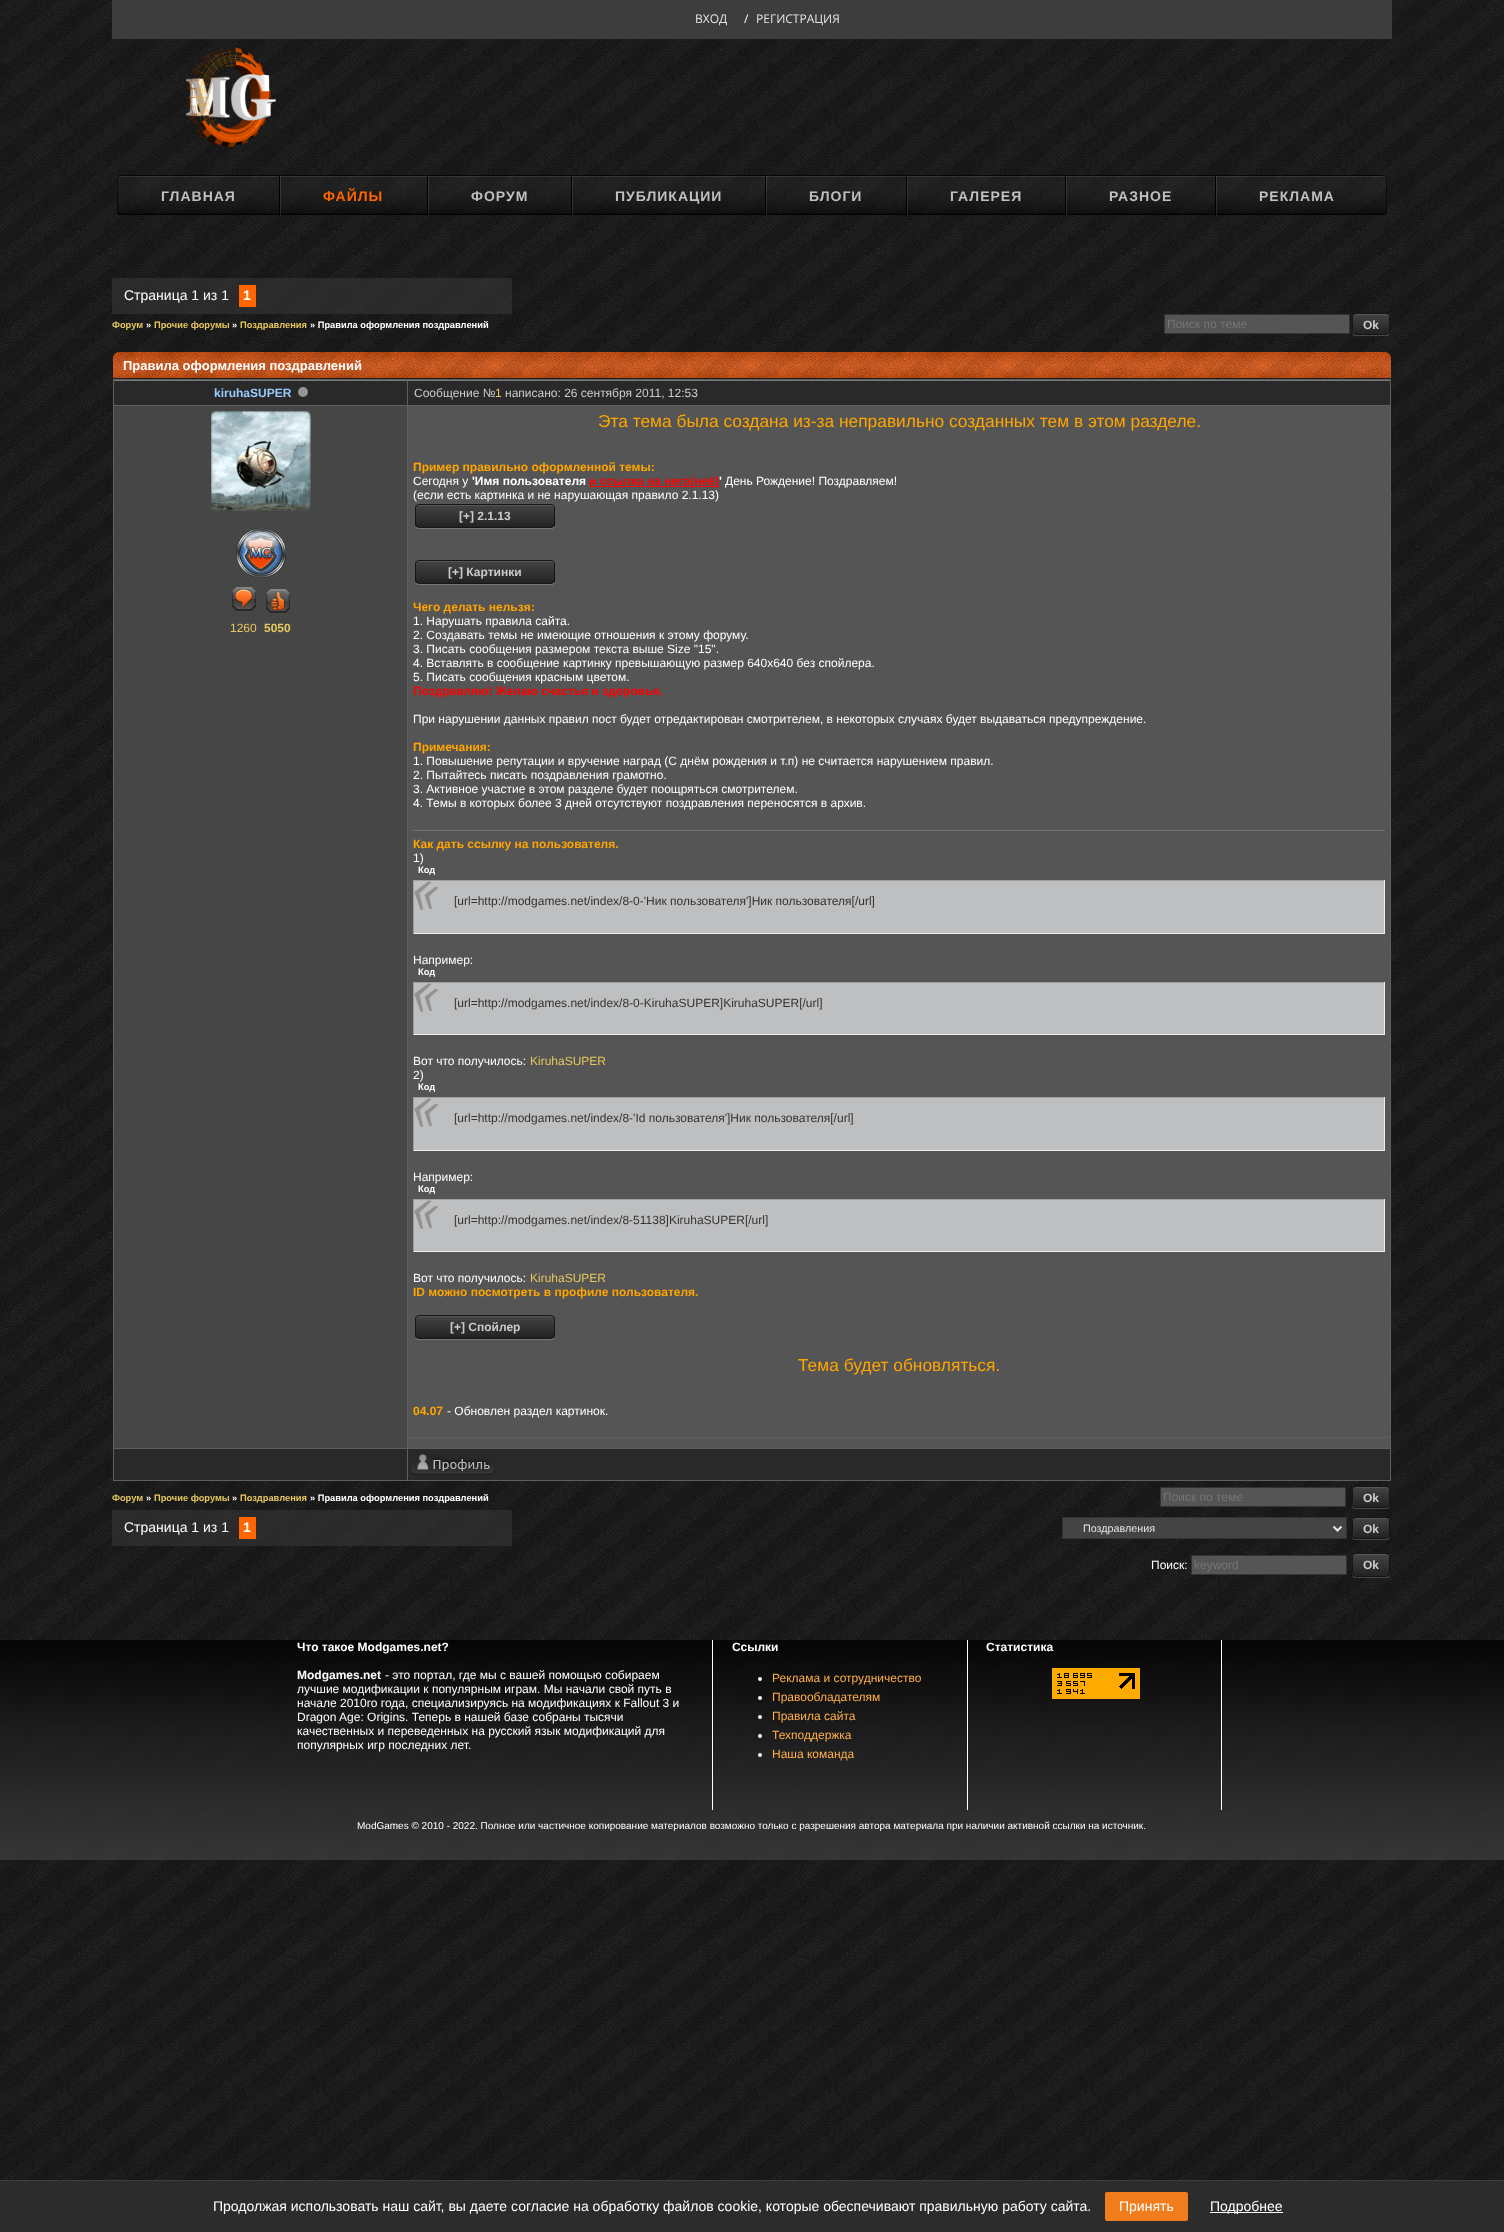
<svg xmlns="http://www.w3.org/2000/svg" width="1504" height="2232">
<style>
.a{font:12px Open Sans;fill:#e5e5e5}
.b{font:12px Open Sans;fill:#fff}
.c{font:bold 14px Liberation Sans;letter-spacing:1px;fill:#c0c0c0}
.d{font:bold 14px Liberation Sans;letter-spacing:1px;fill:#f60}
.e{font:14px Liberation Sans;fill:#fff}
.f{font:bold 14px Liberation Sans;fill:#fff}
.g{font:bold 9.3px Liberation Sans;fill:#e6c75e}
.h{font:bold 9.3px Liberation Sans;fill:#fff}
.i{font:12px Liberation Sans;fill:#757575}
.j{font:bold 12px Liberation Sans;fill:#ccc}
.k{font:bold 13px Liberation Sans;fill:#fff}
.l{font:bold 12px Liberation Sans;fill:#9cf}
.m{font:12px Liberation Sans;fill:#ccc}
.n{font:12px Liberation Sans;fill:#e6c75e}
.o{font:bold 12px Liberation Sans;fill:#e6c75e}
.p{font:17.35px Liberation Sans;fill:#ffa500}
.q{font:bold 12px Liberation Sans;fill:#ffa500}
.r{font:12px Liberation Sans;fill:#fff}
.s{font:bold 12px Liberation Sans;fill:#fff}
.t{font:bold 12px Liberation Sans;fill:#f00}
.u{font:12px Liberation Sans;fill:#333}
.v{font:10.75px Liberation Sans;fill:#e5e5e5}
.w{font:12px Liberation Sans;fill:#ffaf4b}
.x{font:10px Liberation Sans;fill:#fff}
</style>
<defs>
<clipPath id="clip1"><path d="M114 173h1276v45h-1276zm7 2h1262c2 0 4 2 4 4v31c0 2-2 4-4 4h-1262c-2 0-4-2-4-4v-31c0-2 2-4 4-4z" clip-rule="evenodd"/></clipPath>
<clipPath id="clip2"><rect x="117" y="175" width="1270" height="39" rx="4"/></clipPath>
<linearGradient id="g1" gradientUnits="userSpaceOnUse" x1="752" y1="139" x2="752" y2="176"><stop offset="0" stop-color="#555" stop-opacity="0.1"/><stop offset="1" stop-color="#000" stop-opacity="0.4"/></linearGradient>
<linearGradient id="g2" gradientUnits="userSpaceOnUse" x1="752" y1="176" x2="752" y2="213"><stop offset="0" stop-color="#555" stop-opacity="0.1"/><stop offset="1" stop-color="#000" stop-opacity="0.4"/></linearGradient>
<linearGradient id="g3" gradientUnits="userSpaceOnUse" x1="752" y1="213" x2="752" y2="250"><stop offset="0" stop-color="#555" stop-opacity="0.1"/><stop offset="1" stop-color="#000" stop-opacity="0.4"/></linearGradient>
<clipPath id="clip3"><rect x="1352" y="313" width="38" height="22" rx="4"/></clipPath>
<linearGradient id="g4" gradientUnits="userSpaceOnUse" x1="1353" y1="314" x2="1353" y2="334"><stop offset="0" stop-color="#444"/><stop offset="1" stop-color="#222"/></linearGradient>
<clipPath id="clip4"><rect x="415" y="504" width="140" height="24" rx="4"/></clipPath>
<linearGradient id="g5" gradientUnits="userSpaceOnUse" x1="416" y1="505" x2="416" y2="527"><stop offset="0" stop-color="#444"/><stop offset="1" stop-color="#222"/></linearGradient>
<clipPath id="clip5"><rect x="415" y="560" width="140" height="24" rx="4"/></clipPath>
<linearGradient id="g6" gradientUnits="userSpaceOnUse" x1="416" y1="561" x2="416" y2="583"><stop offset="0" stop-color="#444"/><stop offset="1" stop-color="#222"/></linearGradient>
<clipPath id="clip6"><rect x="415" y="1315" width="140" height="24" rx="4"/></clipPath>
<linearGradient id="g7" gradientUnits="userSpaceOnUse" x1="416" y1="1316" x2="416" y2="1338"><stop offset="0" stop-color="#444"/><stop offset="1" stop-color="#222"/></linearGradient>
<clipPath id="clip7"><rect x="1352" y="1486" width="38" height="22" rx="4"/></clipPath>
<linearGradient id="g8" gradientUnits="userSpaceOnUse" x1="1353" y1="1487" x2="1353" y2="1507"><stop offset="0" stop-color="#444"/><stop offset="1" stop-color="#222"/></linearGradient>
<clipPath id="clip8"><rect x="1352" y="1517" width="38" height="22" rx="4"/></clipPath>
<linearGradient id="g9" gradientUnits="userSpaceOnUse" x1="1353" y1="1518" x2="1353" y2="1538"><stop offset="0" stop-color="#444"/><stop offset="1" stop-color="#222"/></linearGradient>
<clipPath id="clip9"><rect x="1352" y="1553" width="38" height="24" rx="4"/></clipPath>
<linearGradient id="g10" gradientUnits="userSpaceOnUse" x1="1353" y1="1554" x2="1353" y2="1576"><stop offset="0" stop-color="#444"/><stop offset="1" stop-color="#222"/></linearGradient>
</defs>
<rect width="100%" height="100%" fill="#fff"/>
<image href="1.png" x="0" y="0" width="1504" height="2180"/>
<path fill="#3d3d3d" d="M112 0h1280v39H112z"/>
<image href="2.png" x="185" y="47" width="92" height="100"/>
<g clip-path="url(#clip1)">
<rect fill="#000" filter="blur(0.5px)" x="117" y="176" width="1270" height="39" rx="4"/>
</g>
<g clip-path="url(#clip2)">
<path fill="url(#g1)" d="M117 175h1270v1H117z"/>
<path fill="url(#g2)" d="M117 176h1270v37H117z"/>
<path fill="url(#g3)" d="M117 213h1270v1H117z"/>
</g>
<path fill="#ffffff1a" d="M121 177h1262c2 0 3 1 3 3v-1c0-2-1-3-3-3h-1262c-2 0-3 1-3 3v1c0-2 1-3 3-3z"/>
<rect fill="none" stroke="#00000099" x="117.5" y="175.5" width="1269" height="38" rx="3.5"/>
<path fill="#ffffff1a" d="M280 176h1v40H280z"/>
<path fill="#000" d="M279 176h1v40H279z"/>
<path fill="#ffffff1a" d="M428 176h1v40H428z"/>
<path fill="#000" d="M427 176h1v40H427z"/>
<path fill="#ffffff1a" d="M572 176h1v40H572z"/>
<path fill="#000" d="M571 176h1v40H571z"/>
<path fill="#ffffff1a" d="M766 176h1v40H766z"/>
<path fill="#000" d="M765 176h1v40H765z"/>
<path fill="#ffffff1a" d="M907 176h1v40H907z"/>
<path fill="#000" d="M906 176h1v40H906z"/>
<path fill="#ffffff1a" d="M1066 176h1v40H1066z"/>
<path fill="#000" d="M1065 176h1v40H1065z"/>
<path fill="#ffffff1a" d="M1216 176h1v40H1216z"/>
<path fill="#000" d="M1215 176h1v40H1215z"/>
<path fill="#3c3c3c85" d="M112 278h400v36H112z"/>
<path fill="#f60" d="M239 285h17v22H239z"/>
<path fill="#555" stroke="#333" d="M1164.5 314.5h185v19H1164.5z"/>
<rect fill="#ffffff33" filter="blur(0.5px)" x="1352" y="314" width="38" height="22" rx="4"/>
<g clip-path="url(#clip3)">
<path fill="url(#g4)" d="M1352 314h38v20H1352z"/>
</g>
<path fill="#565656" fill-rule="evenodd" d="M1356 315h25c5 0 7.5 .5 8 2c0-1.5-1.5-3-3-3h-30c-1.5 0-3 1.5-3 3v.5c.5-1.5 1.5-2.5 3-2.5zm-2.5 17.5l-.5-5.5c0 1.5-.5 4 .5 5.5z"/>
<rect fill="none" stroke="#151515" x="1352.5" y="313.5" width="37" height="21" rx="3.5"/>
<image href="3.png" x="113" y="352" width="1278" height="26"/>
<path fill="#5f5f5f" d="M113 379h1278v1102H113z"/>
<path fill="#292929" d="M114 381h293v24H114z"/>
<path fill="#777" d="M114 380h293v1H114z"/>
<circle fill="#969494" cx="303" cy="392" r="5"/>
<path fill="#292929" d="M408 381h982v24H408z"/>
<path fill="#777" d="M408 380h982v1H408z"/>
<path fill="#464646" d="M114 406h293v1042H114z"/>
<image href="4.png" x="211" y="411" width="100" height="100"/>
<image href="5.png" x="236" y="528" width="50" height="50"/>
<image href="6.png" x="232" y="587" width="24" height="24"/>
<image href="7.png" x="266" y="589" width="24" height="24"/>
<path fill="#555" d="M408 406h982v1031H408z"/>
<path fill="#f00" d="M589 486h130v1H589z"/>
<rect fill="#ffffff33" filter="blur(0.5px)" x="415" y="505" width="140" height="24" rx="4"/>
<g clip-path="url(#clip4)">
<path fill="url(#g5)" d="M415 505h140v22H415z"/>
</g>
<path fill="#565656" d="M419 506h132c2 0 3 1 3 3c0-2 0-4-2-4h-134c-2 0-2 2-2 4c0-2 1-3 3-3z"/>
<rect fill="none" stroke="#151515" x="415.5" y="504.5" width="139" height="23" rx="3.5"/>
<rect fill="#ffffff33" filter="blur(0.5px)" x="415" y="561" width="140" height="24" rx="4"/>
<g clip-path="url(#clip5)">
<path fill="url(#g6)" d="M415 561h140v22H415z"/>
</g>
<path fill="#565656" d="M419 562h132c2 0 3 1 3 3c0-2 0-4-2-4h-134c-2 0-2 2-2 4c0-2 1-3 3-3z"/>
<rect fill="none" stroke="#151515" x="415.5" y="560.5" width="139" height="23" rx="3.5"/>
<path fill="#6f6f6f" d="M413 830h972v1H413z"/>
<path fill="#bebfc0" d="M414 881h970v52H414z"/>
<image href="8.png" x="414" y="881" width="25" height="29"/>
<path fill="#9f9f9f" d="M413 880h972v1H413z"/>
<path fill="#eee" d="M1384 880h1v54H1384z"/>
<path fill="#eee" d="M413 933h972v1H413z"/>
<path fill="#9f9f9f" d="M413 880h1v54H413z"/>
<path fill="#bebfc0" d="M414 983h970v51H414z"/>
<image href="8.png" x="414" y="983" width="25" height="29"/>
<path fill="#9f9f9f" d="M413 982h972v1H413z"/>
<path fill="#eee" d="M1384 982h1v53H1384z"/>
<path fill="#eee" d="M413 1034h972v1H413z"/>
<path fill="#9f9f9f" d="M413 982h1v53H413z"/>
<path fill="#bebfc0" d="M414 1098h970v52H414z"/>
<image href="8.png" x="414" y="1098" width="25" height="29"/>
<path fill="#9f9f9f" d="M413 1097h972v1H413z"/>
<path fill="#eee" d="M1384 1097h1v54H1384z"/>
<path fill="#eee" d="M413 1150h972v1H413z"/>
<path fill="#9f9f9f" d="M413 1097h1v54H413z"/>
<path fill="#bebfc0" d="M414 1200h970v51H414z"/>
<image href="8.png" x="414" y="1200" width="25" height="29"/>
<path fill="#9f9f9f" d="M413 1199h972v1H413z"/>
<path fill="#eee" d="M1384 1199h1v53H1384z"/>
<path fill="#eee" d="M413 1251h972v1H413z"/>
<path fill="#9f9f9f" d="M413 1199h1v53H413z"/>
<rect fill="#ffffff33" filter="blur(0.5px)" x="415" y="1316" width="140" height="24" rx="4"/>
<g clip-path="url(#clip6)">
<path fill="url(#g7)" d="M415 1316h140v22H415z"/>
</g>
<path fill="#565656" d="M419 1317h132c2 0 3 1 3 3c0-2 0-4-2-4h-134c-2 0-2 2-2 4c0-2 1-3 3-3z"/>
<rect fill="none" stroke="#151515" x="415.5" y="1315.5" width="139" height="23" rx="3.5"/>
<path fill="#555" d="M408 1438h982v10H408z"/>
<path fill="#292929" d="M114 1449h293v31H114z"/>
<path fill="#292929" d="M408 1449h982v31H408z"/>
<image href="9.png" x="411" y="1453" width="83" height="22"/>
<path fill="#555" stroke="#333" d="M1160.5 1487.5h185v19H1160.5z"/>
<rect fill="#ffffff33" filter="blur(0.5px)" x="1352" y="1487" width="38" height="22" rx="4"/>
<g clip-path="url(#clip7)">
<path fill="url(#g8)" d="M1352 1487h38v20H1352z"/>
</g>
<path fill="#565656" fill-rule="evenodd" d="M1356 1488h25c5 0 7.5 .5 8 2c0-1.5-1.5-3-3-3h-30c-1.5 0-3 1.5-3 3v.5c.5-1.5 1.5-2.5 3-2.5zm-2.5 17.5l-.5-5.5c0 1.5-.5 4 .5 5.5z"/>
<rect fill="none" stroke="#151515" x="1352.5" y="1486.5" width="37" height="21" rx="3.5"/>
<path fill="#3c3c3c85" d="M112 1510h400v36H112z"/>
<path fill="#f60" d="M239 1517h17v22H239z"/>
<path fill="#444" stroke="#333" d="M1062.5 1517.5h284v21H1062.5z"/>
<path fill="none" stroke="#e5e5e5" stroke-width="2" d="M1333.5 1526.5l4 4l4-4"/>
<rect fill="#ffffff33" filter="blur(0.5px)" x="1352" y="1518" width="38" height="22" rx="4"/>
<g clip-path="url(#clip8)">
<path fill="url(#g9)" d="M1352 1518h38v20H1352z"/>
</g>
<path fill="#565656" fill-rule="evenodd" d="M1356 1519h25c5 0 7.5 .5 8 2c0-1.5-1.5-3-3-3h-30c-1.5 0-3 1.5-3 3v.5c.5-1.5 1.5-2.5 3-2.5zm-2.5 17.5l-.5-5.5c0 1.5-.5 4 .5 5.5z"/>
<rect fill="none" stroke="#151515" x="1352.5" y="1517.5" width="37" height="21" rx="3.5"/>
<path fill="#555" stroke="#333" d="M1191.5 1555.5h155v19H1191.5z"/>
<rect fill="#ffffff33" filter="blur(0.5px)" x="1352" y="1554" width="38" height="24" rx="4"/>
<g clip-path="url(#clip9)">
<path fill="url(#g10)" d="M1352 1554h38v22H1352z"/>
</g>
<path fill="#565656" d="M1356 1555h25c5.5 0 7.5 .5 8 2.5c0-4.5-5-3.5-8-3.5h-20c-2.5 0-8-1-8 3c.5-1 1.5-2 3-2z"/>
<rect fill="none" stroke="#151515" x="1352.5" y="1553.5" width="37" height="23" rx="3.5"/>
<path fill="#fff" d="M712 1640h1v170H712z"/>
<path fill="#fff" d="M967 1640h1v170H967z"/>
<circle fill="#fff" cx="760" cy="1679" r="2"/>
<circle fill="#fff" cx="760" cy="1698" r="2"/>
<circle fill="#fff" cx="760" cy="1717" r="2"/>
<circle fill="#fff" cx="760" cy="1736" r="2"/>
<circle fill="#fff" cx="760" cy="1755" r="2"/>
<path fill="#fff" d="M1221 1640h1v170H1221z"/>
<image href="10.png" x="1052" y="1668" width="88" height="31"/>
<path fill="#2c2c2c" d="M0 2181h1504v51H0z"/>
<path fill="#3d3d3d" d="M0 2180h1504v1H0z"/>
<rect fill="#f17c1c" x="1105" y="2192" width="83" height="29" rx="2"/>
<path fill="#fff" d="M1210 2212h73v1H1210z"/>
<text class="a" x="695" y="23">ВХОД</text>
<text class="b" x="744" y="23">/</text>
<text class="a" x="756" y="23">РЕГИСТРАЦИЯ</text>
<text class="c" x="161" y="201">ГЛАВНАЯ</text>
<text class="d" x="323" y="201">ФАЙЛЫ</text>
<text class="c" x="471" y="201">ФОРУМ</text>
<text class="c" x="615" y="201">ПУБЛИКАЦИИ</text>
<text class="c" x="809" y="201">БЛОГИ</text>
<text class="c" x="950" y="201">ГАЛЕРЕЯ</text>
<text class="c" x="1109" y="201">РАЗНОЕ</text>
<text class="c" x="1259" y="201">РЕКЛАМА</text>
<text class="e" x="124" y="300">Страница 1 из 1</text>
<text class="f" x="243" y="300">1</text>
<text class="g" x="112" y="328">Форум</text>
<text class="h" x="146" y="328">»</text>
<text class="g" x="154" y="328">Прочие форумы</text>
<text class="h" x="232" y="328">»</text>
<text class="g" x="240" y="328">Поздравления</text>
<text class="h" x="310" y="328">» Правила оформления поздравлений</text>
<text class="i" x="1167" y="328">Поиск по теме</text>
<text class="j" x="1363" y="329">Ok</text>
<text class="k" x="123" y="370">Правила оформления поздравлений</text>
<text class="l" x="214" y="397">kiruhaSUPER</text>
<text class="m" x="414" y="397">Сообщение №</text>
<text class="n" x="495" y="397">1</text>
<text class="m" x="505" y="397">написано: 26 сентября 2011, 12:53</text>
<text class="n" x="230" y="632">1260</text>
<text class="o" x="264" y="632">5050</text>
<text class="p" x="598" y="427">Эта тема была создана из-за неправильно созданных тем в этом разделе.</text>
<text class="q" x="413" y="471">Пример правильно оформленной темы:</text>
<text class="r" x="413" y="485">Сегодня у</text>
<text class="s" x="472" y="485">'Имя пользователя</text>
<text class="t" x="589" y="485">и ссылка на него(неё)</text>
<text class="s" x="719" y="485">'</text>
<text class="r" x="725" y="485">День Рождение! Поздравляем!</text>
<text class="r" x="413" y="499">(если есть картинка и не нарушающая правило 2.1.13)</text>
<text class="j" x="459" y="520">[+] 2.1.13</text>
<text class="j" x="448" y="576">[+] Картинки</text>
<text class="q" x="413" y="611">Чего делать нельзя:</text>
<text class="r" x="413" y="625">1. Нарушать правила сайта.</text>
<text class="r" x="413" y="639">2. Создавать темы не имеющие отношения к этому форуму.</text>
<text class="r" x="413" y="653">3. Писать сообщения размером текста выше Size "15".</text>
<text class="r" x="413" y="667">4. Вставлять в сообщение картинку превышающую размер 640x640 без спойлера.</text>
<text class="r" x="413" y="681">5. Писать сообщения красным цветом.</text>
<text class="t" x="413" y="695">Поздравляю! Желаю счастья и здоровья.</text>
<text class="r" x="413" y="723">При нарушении данных правил пост будет отредактирован смотрителем, в некоторых случаях будет выдаваться предупреждение.</text>
<text class="q" x="413" y="751">Примечания:</text>
<text class="r" x="413" y="765">1. Повышение репутации и вручение наград (С днём рождения и т.п) не считается нарушением правил.</text>
<text class="r" x="413" y="779">2. Пытайтесь писать поздравления грамотно.</text>
<text class="r" x="413" y="793">3. Активное участие в этом разделе будет поощряться смотрителем.</text>
<text class="r" x="413" y="807">4. Темы в которых более 3 дней отсутствуют поздравления переносятся в архив.</text>
<text class="q" x="413" y="848">Как дать ссылку на пользователя.</text>
<text class="r" x="413" y="862">1)</text>
<text class="h" x="418" y="873">Код</text>
<text class="u" x="454" y="905">[url=http://modgames.net/index/8-0-'Ник пользователя']Ник пользователя[/url]</text>
<text class="r" x="413" y="964">Например:</text>
<text class="h" x="418" y="975">Код</text>
<text class="u" x="454" y="1007">[url=http://modgames.net/index/8-0-KiruhaSUPER]KiruhaSUPER[/url]</text>
<text class="r" x="413" y="1065">Вот что получилось:</text>
<text class="n" x="530" y="1065">KiruhaSUPER</text>
<text class="r" x="413" y="1079">2)</text>
<text class="h" x="418" y="1090">Код</text>
<text class="u" x="454" y="1122">[url=http://modgames.net/index/8-'Id пользователя']Ник пользователя[/url]</text>
<text class="r" x="413" y="1181">Например:</text>
<text class="h" x="418" y="1192">Код</text>
<text class="u" x="454" y="1224">[url=http://modgames.net/index/8-51138]KiruhaSUPER[/url]</text>
<text class="r" x="413" y="1282">Вот что получилось:</text>
<text class="n" x="530" y="1282">KiruhaSUPER</text>
<text class="q" x="413" y="1296">ID можно посмотреть в профиле пользователя.</text>
<text class="j" x="450" y="1331">[+] Спойлер</text>
<text class="p" x="798" y="1371">Тема будет обновляться.</text>
<text class="q" x="413" y="1415">04.07</text>
<text class="r" x="447" y="1415">- Обновлен раздел картинок.</text>
<text class="g" x="112" y="1501">Форум</text>
<text class="h" x="146" y="1501">»</text>
<text class="g" x="154" y="1501">Прочие форумы</text>
<text class="h" x="232" y="1501">»</text>
<text class="g" x="240" y="1501">Поздравления</text>
<text class="h" x="310" y="1501">» Правила оформления поздравлений</text>
<text class="i" x="1163" y="1501">Поиск по теме</text>
<text class="j" x="1363" y="1502">Ok</text>
<text class="e" x="124" y="1532">Страница 1 из 1</text>
<text class="f" x="243" y="1532">1</text>
<text class="v" x="1083" y="1532">Поздравления</text>
<text class="j" x="1363" y="1533">Ok</text>
<text class="r" x="1151" y="1569">Поиск:</text>
<text class="i" x="1194" y="1569">keyword</text>
<text class="j" x="1363" y="1569">Ok</text>
<text class="s" x="297" y="1651">Что такое Modgames.net?</text>
<text class="s" x="297" y="1679">Modgames.net</text>
<text class="r" x="385" y="1679">- это портал, где мы с вашей помощью собираем</text>
<text class="r" x="297" y="1693">лучшие модификации к популярным играм. Мы начали свой путь в</text>
<text class="r" x="297" y="1707">начале 2010го года, специализируясь на модификациях к Fallout 3 и</text>
<text class="r" x="297" y="1721">Dragon Age: Origins. Теперь в нашей базе собраны тысячи</text>
<text class="r" x="297" y="1735">качественных и переведенных на русский язык модификаций для</text>
<text class="r" x="297" y="1749">популярных игр последних лет.</text>
<text class="s" x="732" y="1651">Ссылки</text>
<text class="w" x="772" y="1682">Реклама и сотрудничество</text>
<text class="w" x="772" y="1701">Правообладателям</text>
<text class="w" x="772" y="1720">Правила сайта</text>
<text class="w" x="772" y="1739">Техподдержка</text>
<text class="w" x="772" y="1758">Наша команда</text>
<text class="s" x="986" y="1651">Статистика</text>
<text class="x" x="357" y="1829">ModGames © 2010 - 2022. Полное или частичное копирование материалов возможно только с разрешения автора материала при наличии активной ссылки на источник.</text>
<text class="e" x="213" y="2211">Продолжая использовать наш сайт, вы даете согласие на обработку файлов cookie, которые обеспечивают правильную работу сайта.</text>
<text class="e" x="1119" y="2211">Принять</text>
<text class="e" x="1210" y="2211">Подробнее</text>
</svg>
